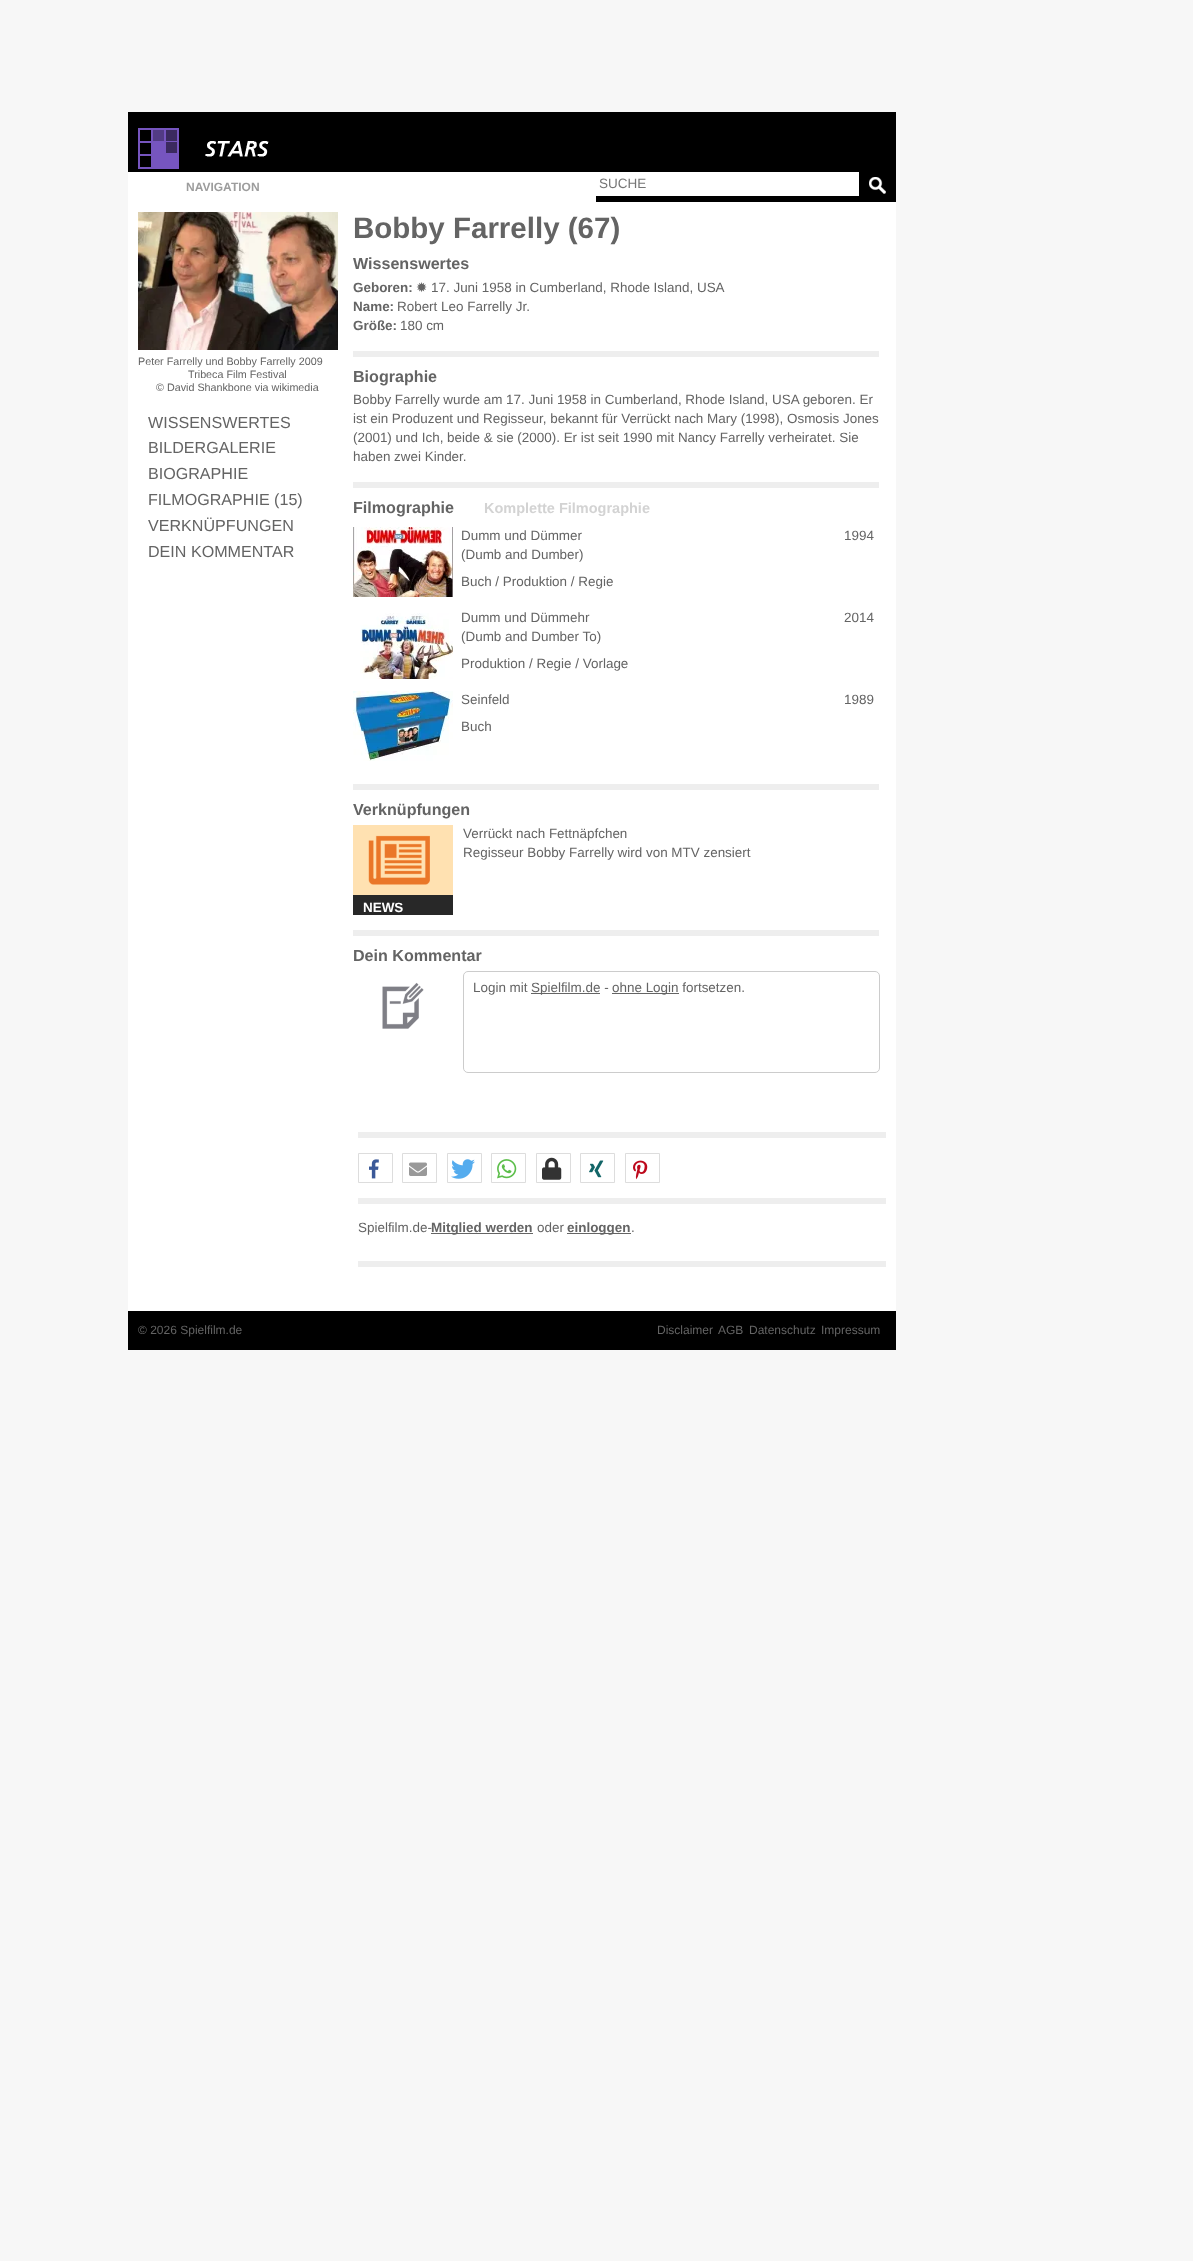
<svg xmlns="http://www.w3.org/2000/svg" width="1193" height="2261">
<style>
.a{font:bold 12px Liberation Sans;fill:#9d9d9d}
.b{font:13.5px Liberation Sans;fill:#757575}
.c{font:10.75px Liberation Sans;fill:#646464}
.d{font:16.1px Liberation Sans;fill:#646464}
.e{font:bold 29.5px Liberation Sans;fill:#646464}
.f{font:bold 16.1px Liberation Sans;fill:#646464}
.g{font:bold 13.45px Liberation Sans;fill:#646464}
.h{font:13.45px DejaVu Sans;fill:#646464}
.i{font:13.45px Liberation Sans;fill:#646464}
.j{font:bold 14.5px Liberation Sans;fill:#d3d3d3}
.k{font:bold 13.45px Liberation Sans;fill:#fff}
.l{font:12px Liberation Sans;fill:#646464}
</style>
<rect width="100%" height="100%" fill="#f7f7f7"/>
<path fill="#fff" d="M128 202h768v1109H128z"/>
<path fill="#000" d="M128 112h768v60H128z"/>
<image href="1.png" x="138" y="128" width="41" height="41"/>
<image href="2.png" x="205" y="141" width="64" height="16"/>
<path fill="#fff" d="M128 172h468v30H128z"/>
<path fill="#000" d="M596 172h300v30H596z"/>
<path fill="#fff" d="M596 172h263v24H596z"/>
<image href="3.png" x="869" y="177" width="17" height="17"/>
<image href="4.png" x="138" y="212" width="200" height="138"/>
<path fill="#eee" d="M353 351h526v6H353z"/>
<path fill="#eee" d="M353 482h526v6H353z"/>
<image href="5.png" x="353" y="527" width="100" height="70"/>
<image href="6.png" x="360" y="613" width="93" height="66"/>
<image href="7.png" x="353" y="691" width="100" height="70"/>
<path fill="#eee" d="M353 784h526v6H353z"/>
<path fill="#282828" d="M353 895h100v20H353z"/>
<image href="8.png" x="353" y="825" width="100" height="70"/>
<path fill="#eee" d="M353 930h526v6H353z"/>
<image href="9.png" x="382" y="982" width="42" height="47"/>
<rect fill="none" stroke="#ccc" x="463.5" y="971.5" width="416" height="101" rx="4.5"/>
<path fill="#646464" d="M531 993h69v1H531z"/>
<path fill="#646464" d="M612 993h67v1H612z"/>
<path fill="#eee" d="M358 1132h528v6H358z"/>
<path fill="none" stroke="#ddd" d="M358.5 1153.5h34v29H358.5z"/>
<image href="10.png" x="369" y="1159" width="10" height="20"/>
<path fill="none" stroke="#ddd" d="M402.5 1153.5h34v29H402.5z"/>
<image href="11.png" x="409" y="1162" width="18" height="14"/>
<path fill="none" stroke="#ddd" d="M447.5 1153.5h34v29H447.5z"/>
<image href="12.png" x="451" y="1159" width="24" height="20"/>
<path fill="none" stroke="#ddd" d="M491.5 1153.5h34v29H491.5z"/>
<image href="13.png" x="497" y="1159" width="20" height="20"/>
<path fill="none" stroke="#ddd" d="M536.5 1153.5h34v29H536.5z"/>
<image href="14.png" x="542" y="1157" width="20" height="23"/>
<path fill="none" stroke="#ddd" d="M580.5 1153.5h34v29H580.5z"/>
<image href="15.png" x="589" y="1160" width="15" height="18"/>
<path fill="none" stroke="#ddd" d="M625.5 1153.5h34v29H625.5z"/>
<image href="16.png" x="633" y="1160" width="15" height="20"/>
<path fill="#eee" d="M358 1198h528v6H358z"/>
<path fill="#646464" d="M431 1233h102v1H431z"/>
<path fill="#646464" d="M567 1233h64v1H567z"/>
<path fill="#eee" d="M358 1261h528v6H358z"/>
<path fill="#000" d="M128 1311h768v39H128z"/>
<text class="a" x="186" y="191">NAVIGATION</text>
<text class="b" x="599" y="188">SUCHE</text>
<text class="c" x="138" y="365">Peter Farrelly und Bobby Farrelly 2009</text>
<text class="c" x="188" y="378">Tribeca Film Festival</text>
<text class="c" x="156" y="391">© David Shankbone via wikimedia</text>
<text class="d" x="148" y="428">WISSENSWERTES</text>
<text class="d" x="148" y="453">BILDERGALERIE</text>
<text class="d" x="148" y="479">BIOGRAPHIE</text>
<text class="d" x="148" y="505">FILMOGRAPHIE (15)</text>
<text class="d" x="148" y="531">VERKNÜPFUNGEN</text>
<text class="d" x="148" y="557">DEIN KOMMENTAR</text>
<text class="e" x="353" y="238">Bobby Farrelly (67)</text>
<text class="f" x="353" y="269">Wissenswertes</text>
<text class="g" x="353" y="292">Geboren:</text>
<text class="h" x="416" y="292">✹</text>
<text class="i" x="431" y="292">17. Juni 1958 in Cumberland, Rhode Island, USA</text>
<text class="g" x="353" y="311">Name:</text>
<text class="i" x="397" y="311">Robert Leo Farrelly Jr.</text>
<text class="g" x="353" y="330">Größe:</text>
<text class="i" x="400" y="330">180 cm</text>
<text class="f" x="353" y="382">Biographie</text>
<text class="i" x="353" y="404">Bobby Farrelly wurde am 17. Juni 1958 in Cumberland, Rhode Island, USA geboren. Er</text>
<text class="i" x="353" y="423">ist ein Produzent und Regisseur, bekannt für Verrückt nach Mary (1998), Osmosis Jones</text>
<text class="i" x="353" y="442">(2001) und Ich, beide &amp; sie (2000). Er ist seit 1990 mit Nancy Farrelly verheiratet. Sie</text>
<text class="i" x="353" y="461">haben zwei Kinder.</text>
<text class="f" x="353" y="513">Filmographie</text>
<text class="j" x="484" y="513">Komplette Filmographie</text>
<text class="i" x="461" y="540">Dumm und Dümmer</text>
<text class="i" x="461" y="559">(Dumb and Dumber)</text>
<text class="i" x="461" y="586">Buch / Produktion / Regie</text>
<text class="i" x="844" y="540">1994</text>
<text class="i" x="461" y="622">Dumm und Dümmehr</text>
<text class="i" x="461" y="641">(Dumb and Dumber To)</text>
<text class="i" x="461" y="668">Produktion / Regie / Vorlage</text>
<text class="i" x="844" y="622">2014</text>
<text class="i" x="461" y="704">Seinfeld</text>
<text class="i" x="461" y="731">Buch</text>
<text class="i" x="844" y="704">1989</text>
<text class="f" x="353" y="815">Verknüpfungen</text>
<text class="i" x="463" y="838">Verrückt nach Fettnäpfchen</text>
<text class="i" x="463" y="857">Regisseur Bobby Farrelly wird von MTV zensiert</text>
<text class="k" x="363" y="912">NEWS</text>
<text class="f" x="353" y="961">Dein Kommentar</text>
<text class="i" x="473" y="992">Login mit</text>
<text class="i" x="531" y="992">Spielfilm.de -</text>
<text class="i" x="612" y="992">ohne Login fortsetzen.</text>
<text class="i" x="358" y="1232">Spielfilm.de-</text>
<text class="g" x="431" y="1232">Mitglied werden</text>
<text class="i" x="537" y="1232">oder</text>
<text class="g" x="567" y="1232">einloggen</text>
<text class="i" x="631" y="1232">.</text>
<text class="l" x="138" y="1334">© 2026 Spielfilm.de</text>
<text class="l" x="657" y="1334">Disclaimer</text>
<text class="l" x="718" y="1334">AGB</text>
<text class="l" x="749" y="1334">Datenschutz</text>
<text class="l" x="821" y="1334">Impressum</text>
</svg>
